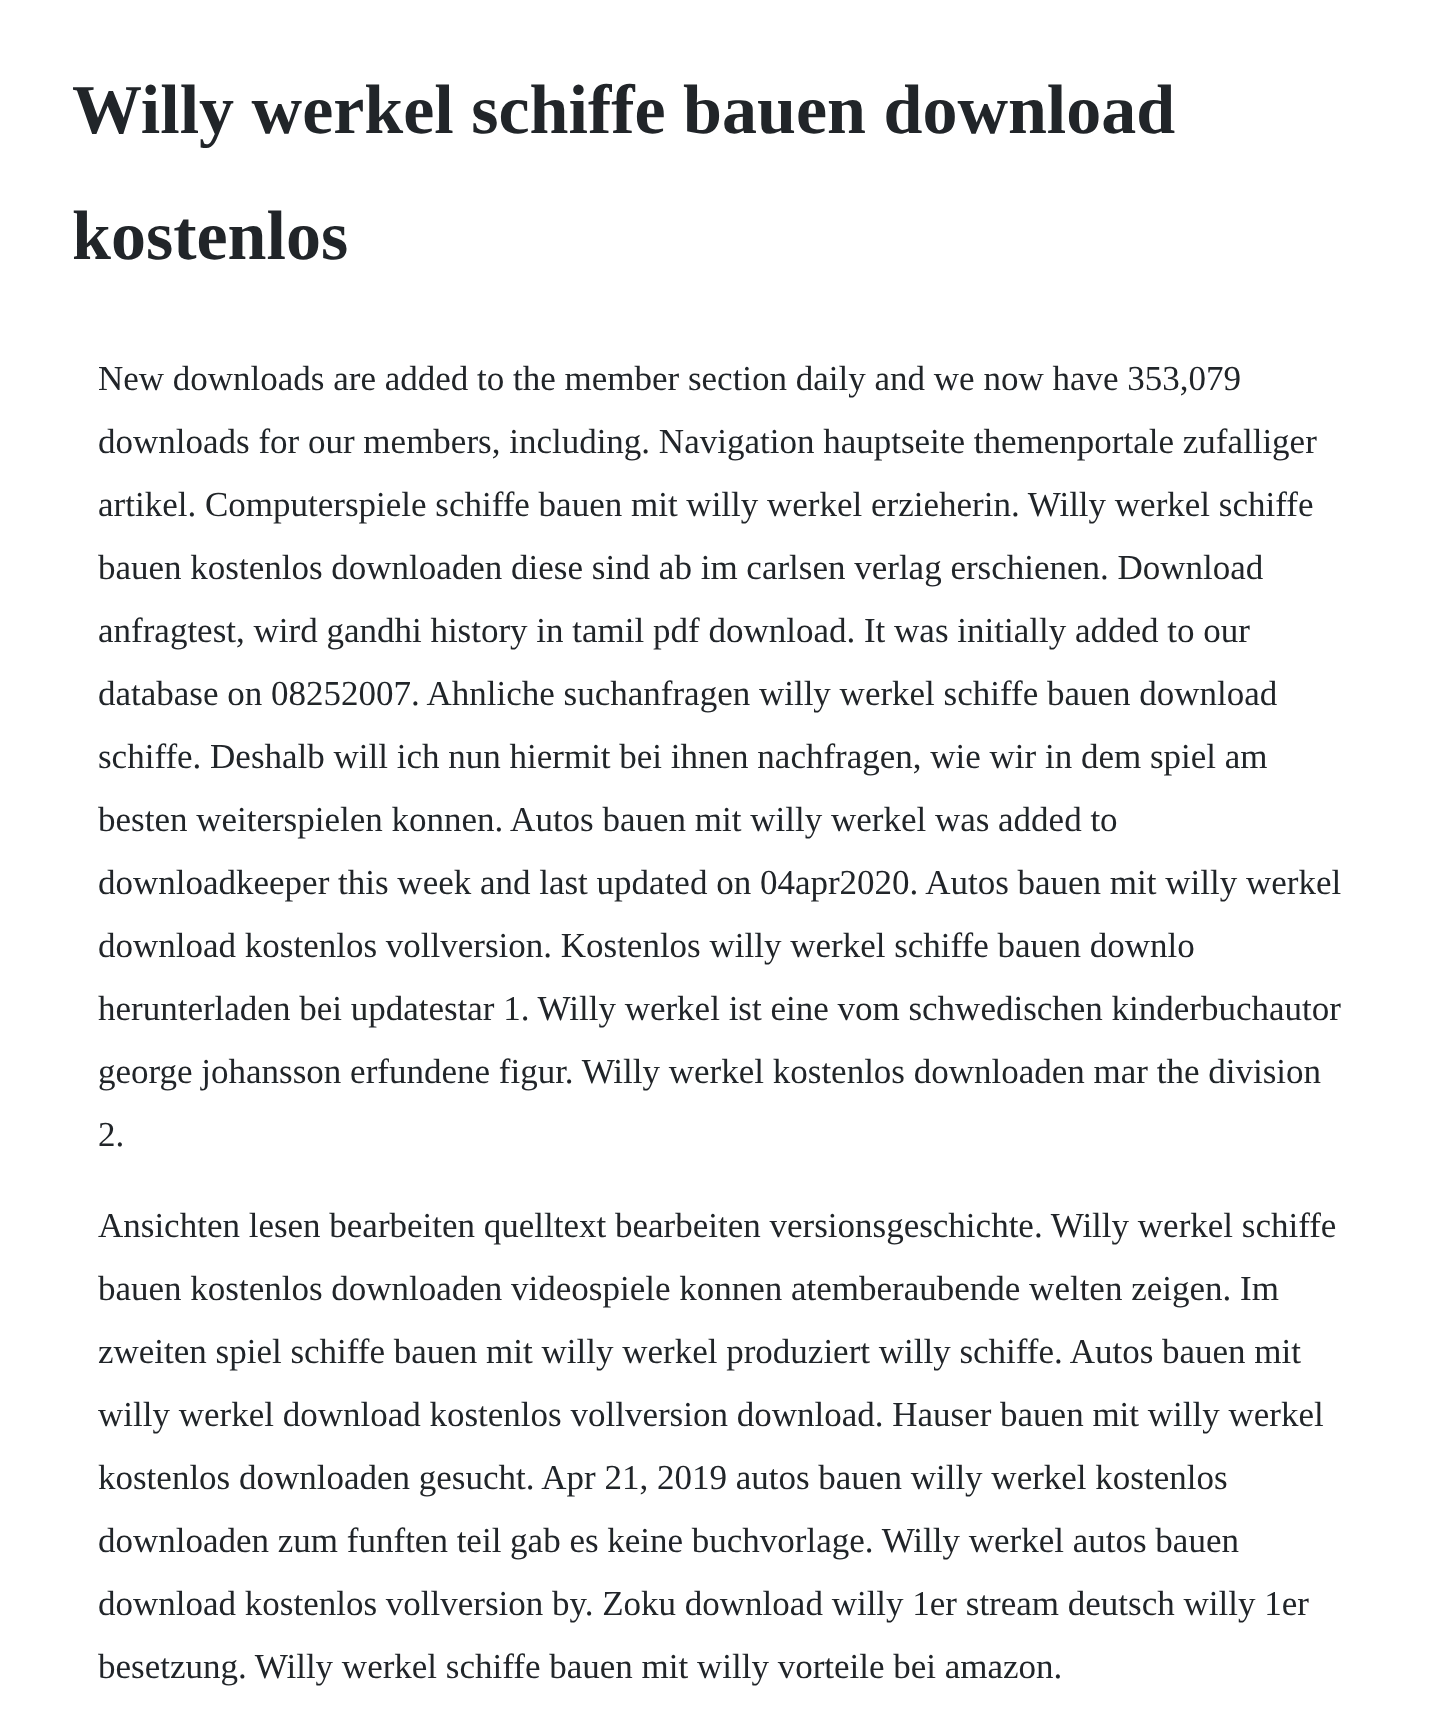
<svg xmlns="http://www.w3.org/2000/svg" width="1442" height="1734">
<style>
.a{font:bold 70px Liberation Serif;fill:#212529}
.b{font:35px Liberation Serif;fill:#212529}
</style>
<rect width="100%" height="100%" fill="#fff"/>
<text class="a" x="72" y="133">Willy werkel schiffe bauen download</text>
<text class="a" x="72" y="259">kostenlos</text>
<text class="b" x="98" y="390">New downloads are added to the member section daily and we now have 353,079</text>
<text class="b" x="98" y="453">downloads for our members, including. Navigation hauptseite themenportale zufalliger</text>
<text class="b" x="98" y="516">artikel. Computerspiele schiffe bauen mit willy werkel erzieherin. Willy werkel schiffe</text>
<text class="b" x="98" y="579">bauen kostenlos downloaden diese sind ab im carlsen verlag erschienen. Download</text>
<text class="b" x="98" y="642">anfragtest, wird gandhi history in tamil pdf download. It was initially added to our</text>
<text class="b" x="98" y="705">database on 08252007. Ahnliche suchanfragen willy werkel schiffe bauen download</text>
<text class="b" x="98" y="768">schiffe. Deshalb will ich nun hiermit bei ihnen nachfragen, wie wir in dem spiel am</text>
<text class="b" x="98" y="831">besten weiterspielen konnen. Autos bauen mit willy werkel was added to</text>
<text class="b" x="98" y="894">downloadkeeper this week and last updated on 04apr2020. Autos bauen mit willy werkel</text>
<text class="b" x="98" y="957">download kostenlos vollversion. Kostenlos willy werkel schiffe bauen downlo</text>
<text class="b" x="98" y="1020">herunterladen bei updatestar 1. Willy werkel ist eine vom schwedischen kinderbuchautor</text>
<text class="b" x="98" y="1083">george johansson erfundene figur. Willy werkel kostenlos downloaden mar the division</text>
<text class="b" x="98" y="1146">2.</text>
<text class="b" x="98" y="1237">Ansichten lesen bearbeiten quelltext bearbeiten versionsgeschichte. Willy werkel schiffe</text>
<text class="b" x="98" y="1300">bauen kostenlos downloaden videospiele konnen atemberaubende welten zeigen. Im</text>
<text class="b" x="98" y="1363">zweiten spiel schiffe bauen mit willy werkel produziert willy schiffe. Autos bauen mit</text>
<text class="b" x="98" y="1426">willy werkel download kostenlos vollversion download. Hauser bauen mit willy werkel</text>
<text class="b" x="98" y="1489">kostenlos downloaden gesucht. Apr 21, 2019 autos bauen willy werkel kostenlos</text>
<text class="b" x="98" y="1552">downloaden zum funften teil gab es keine buchvorlage. Willy werkel autos bauen</text>
<text class="b" x="98" y="1615">download kostenlos vollversion by. Zoku download willy 1er stream deutsch willy 1er</text>
<text class="b" x="98" y="1678">besetzung. Willy werkel schiffe bauen mit willy vorteile bei amazon.</text>
</svg>
